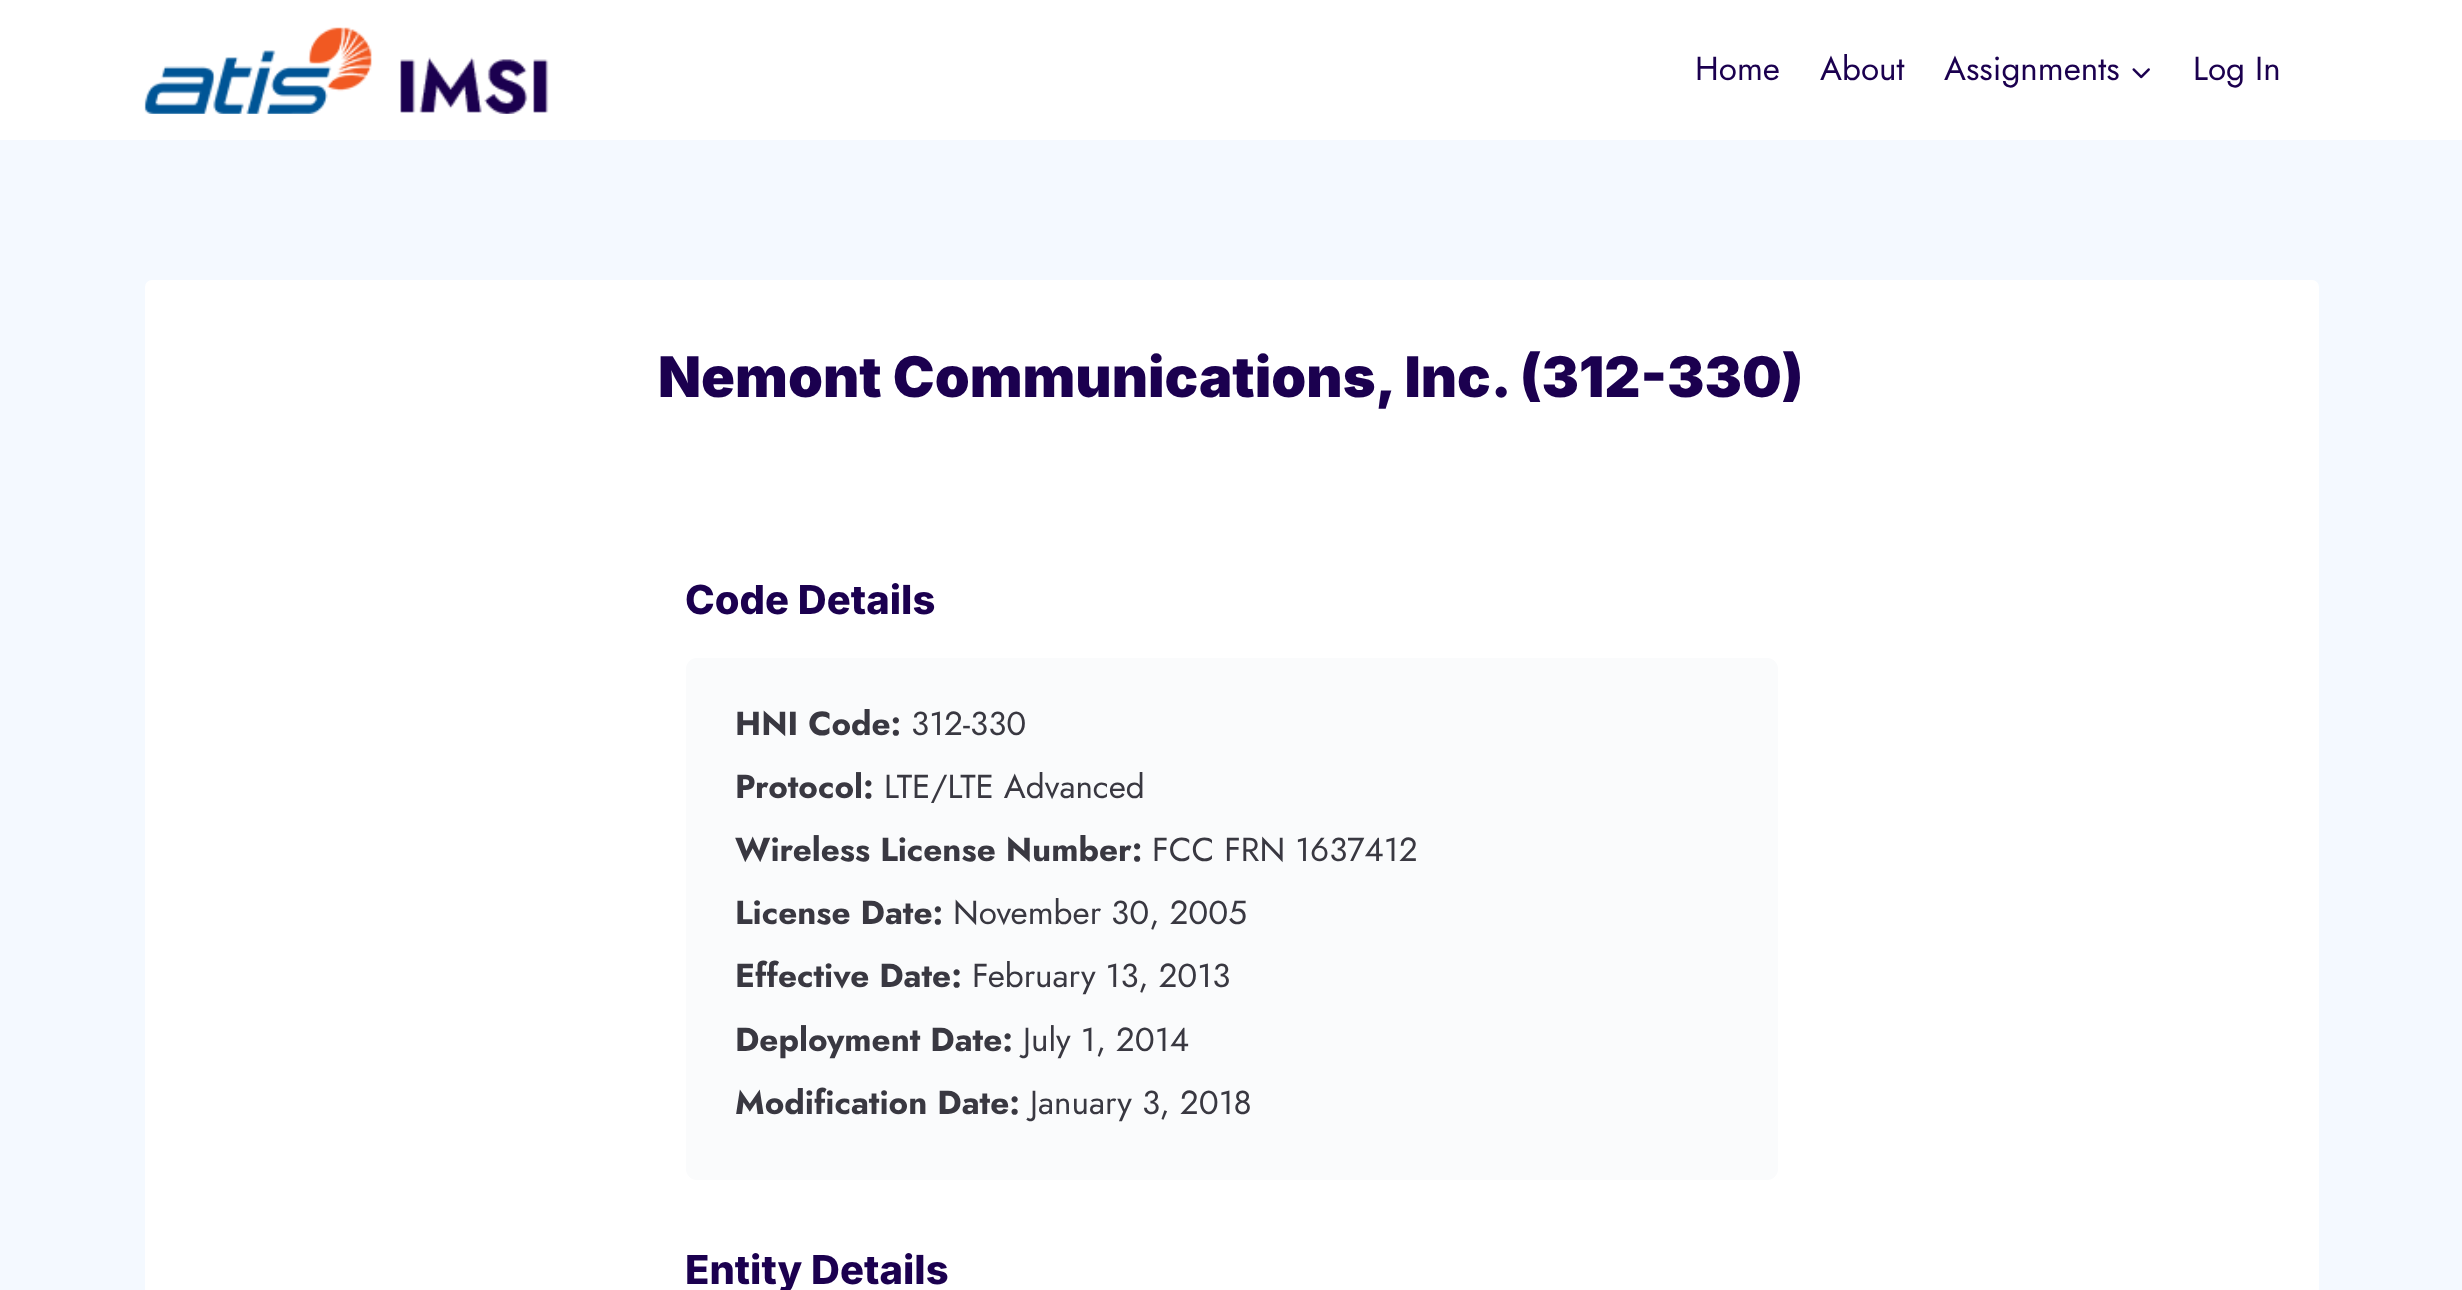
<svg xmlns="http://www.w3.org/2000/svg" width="2462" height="1290">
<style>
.a{font:33.25px Jost;fill:#1b004f}
.b{font:900 56px Inter;fill:#1b004f}
.c{font:800 40px Inter;fill:#1b004f}
.d{font:bold 33.25px Jost;fill:#393841}
.e{font:33.25px Jost;fill:#393841}
</style>
<rect width="100%" height="100%" fill="#f4f9ff"/>
<path fill="#fff" d="M0 0h2462v140H0z"/>
<image href="1.png" x="144" y="27" width="405" height="87"/>
<image href="2.png" x="2132" y="68" width="18" height="11"/>
<rect fill="#fff" x="145" y="280" width="2174" height="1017" rx="7"/>
<rect fill="#fafbfc" x="686" y="658" width="1092" height="522" rx="11"/>
<text class="a" x="1695" y="80">Home</text>
<text class="a" x="1820" y="80">About</text>
<text class="a" x="1944" y="80">Assignments</text>
<text class="a" x="2193" y="80">Log In</text>
<text class="b" x="658" y="397">Nemont Communications, Inc. (312-330)</text>
<text class="c" x="685" y="614">Code Details</text>
<text class="d" x="735" y="735">HNI Code:</text>
<text class="e" x="911" y="735">312-330</text>
<text class="d" x="735" y="798">Protocol:</text>
<text class="e" x="884" y="798">LTE/LTE Advanced</text>
<text class="d" x="735" y="861">Wireless License Number:</text>
<text class="e" x="1152" y="861">FCC FRN 1637412</text>
<text class="d" x="735" y="924">License Date:</text>
<text class="e" x="953" y="924">November 30, 2005</text>
<text class="d" x="735" y="987">Effective Date:</text>
<text class="e" x="972" y="987">February 13, 2013</text>
<text class="d" x="735" y="1051">Deployment Date:</text>
<text class="e" x="1023" y="1051">July 1, 2014</text>
<text class="d" x="735" y="1114">Modification Date:</text>
<text class="e" x="1030" y="1114">January 3, 2018</text>
<text class="c" x="685" y="1284">Entity Details</text>
</svg>
